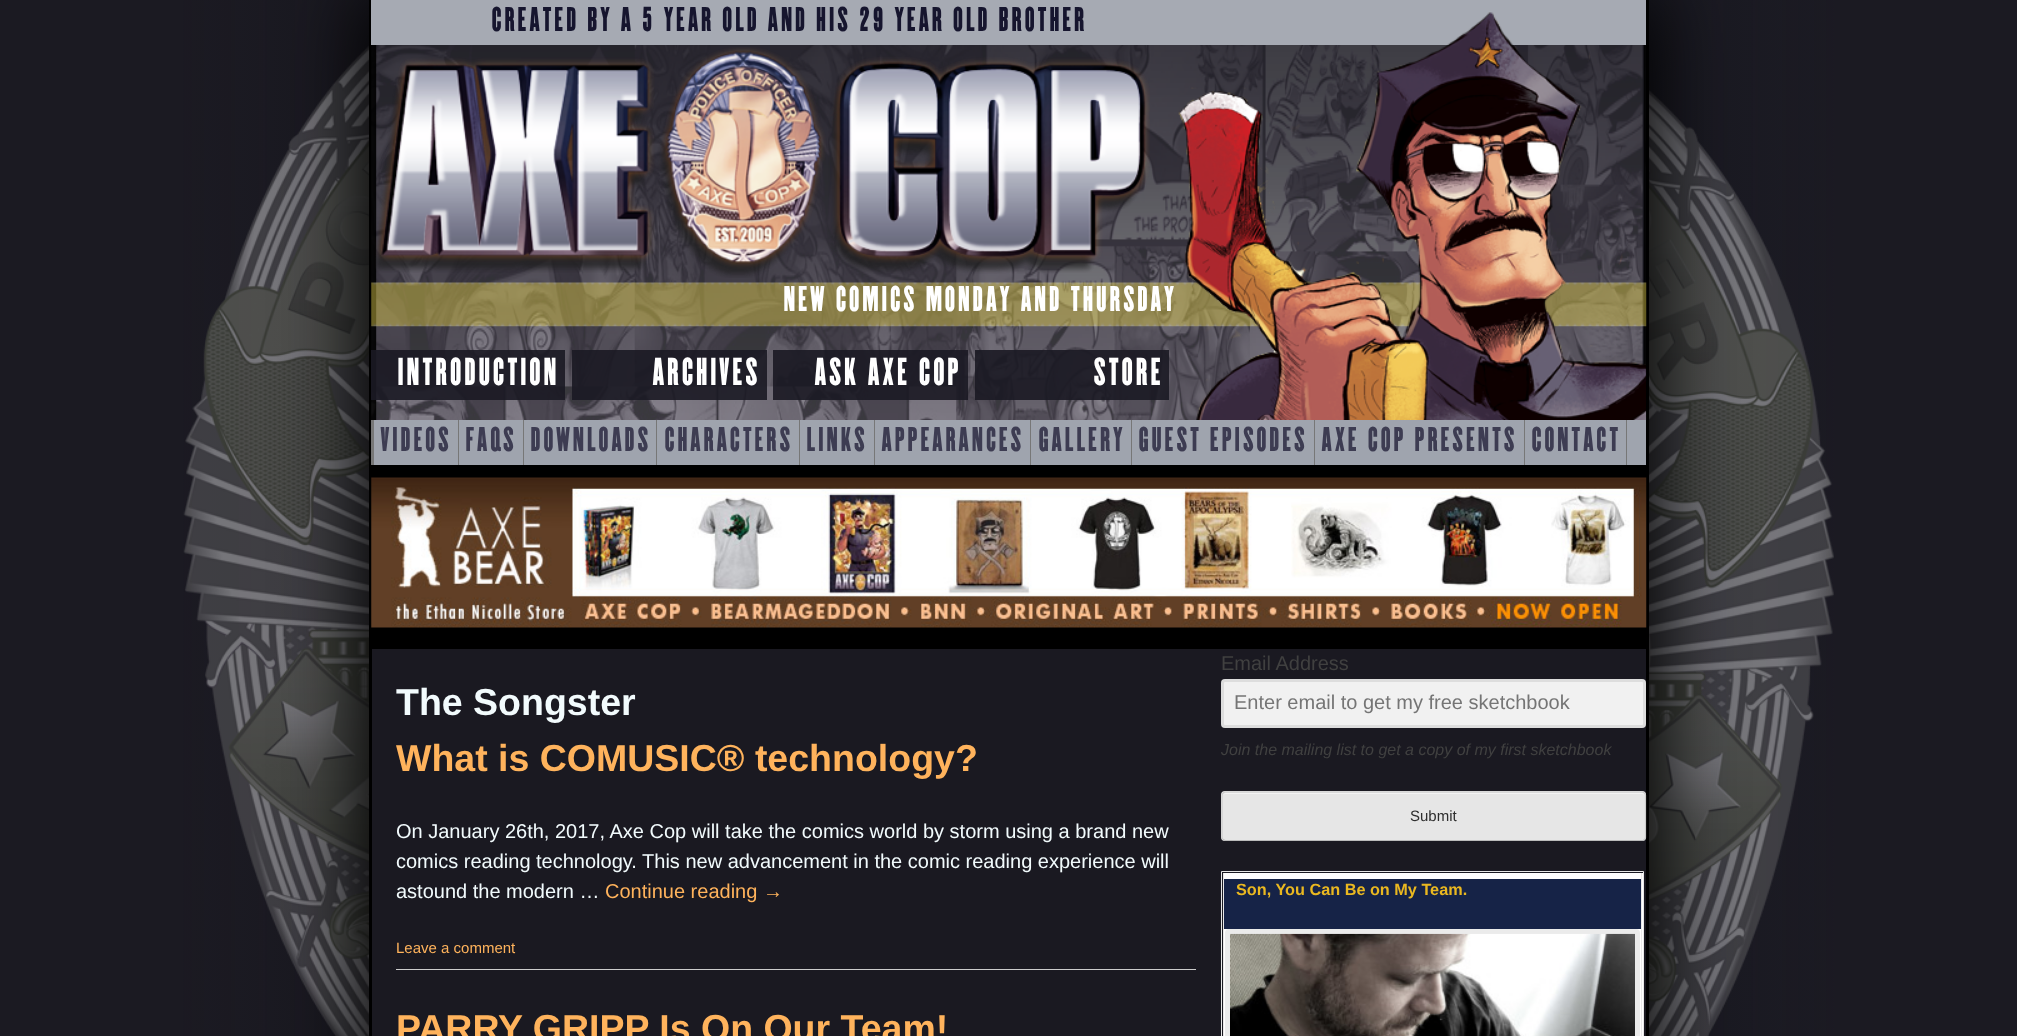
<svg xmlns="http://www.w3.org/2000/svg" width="2017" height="1036">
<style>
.a{font:100 30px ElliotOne;letter-spacing:2.5px;fill:#16152e}
.b{font:100 31.25px ElliotOne;letter-spacing:2.5px;fill:#fff}
.c{font:100 34px ElliotOne;letter-spacing:2.5px;fill:#fff}
.d{font:100 30px ElliotOne;letter-spacing:2.5px;fill:#3d3c52}
.e{font:bold 37.5px Liberation Sans;fill:#f2fbfd}
.f{font:bold 37.5px Liberation Sans;fill:#ffb35c}
.g{font:20px Liberation Sans;fill:#f2fbfd}
.h{font:20px Liberation Sans;fill:#ffb35c}
.i{font:15px Liberation Sans;fill:#ffb35c}
.j{font:20px Liberation Sans;fill:#404040}
.k{font:20px Liberation Sans;fill:#757575}
.l{font:italic 16px Liberation Sans;fill:#404040}
.m{font:15px Liberation Sans;fill:#2e2e2e}
.n{font:bold 16.25px Liberation Sans;fill:#eab820}
</style>
<rect width="100%" height="100%" fill="#1b1a22"/>
<image href="1.png" x="183" y="0" width="1651" height="1036"/>
<path fill="#000" filter="blur(39.5px)" d="M360 -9h1298v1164H360z"/>
<path fill="#1a1921" d="M372 649h1274v387H372z"/>
<path fill="#000" d="M1646 0h3v1036H1646z"/>
<path fill="#000" d="M369 0h3v1036H369z"/>
<image href="2.png" x="371" y="45" width="1275" height="375"/>
<path fill="#a6aab3" d="M371 0h1275v45H371z"/>
<image href="3.png" x="375" y="47" width="775" height="231"/>
<image href="5.png" x="371" y="282" width="1276" height="45"/>
<image href="4.png" x="1178" y="12" width="469" height="408"/>
<path fill="#1b1a23e6" d="M371 350h194v50H371z"/>
<path fill="#1b1a23e6" d="M572 350h195v50H572z"/>
<path fill="#1b1a23e6" d="M773 350h195v50H773z"/>
<path fill="#1b1a23e6" d="M975 350h194v50H975z"/>
<path fill="#9fa4ae" d="M374 420h1272v45H374z"/>
<path fill="#777" d="M371 420h3v45H371z"/>
<path fill="#777" d="M458 420h1v45H458z"/>
<path fill="#777" d="M523 420h1v45H523z"/>
<path fill="#777" d="M656 420h1v45H656z"/>
<path fill="#777" d="M799 420h1v45H799z"/>
<path fill="#777" d="M874 420h1v45H874z"/>
<path fill="#777" d="M1030 420h1v45H1030z"/>
<path fill="#777" d="M1131 420h1v45H1131z"/>
<path fill="#777" d="M1314 420h1v45H1314z"/>
<path fill="#777" d="M1524 420h1v45H1524z"/>
<path fill="#777" d="M1626 420h1v45H1626z"/>
<path fill="#000" d="M372 465h1274v184H372z"/>
<image href="6.png" x="371" y="477" width="1276" height="151"/>
<path fill="#ccc" d="M396 969h800v1H396z"/>
<rect fill="#f1f1f1" x="1221" y="679" width="425" height="49" rx="4"/>
<rect fill="none" stroke="#3333331a" stroke-width="3" x="1222.5" y="680.5" width="422" height="46" rx="2.5"/>
<rect fill="#e6e6e6" x="1221" y="791" width="425" height="50" rx="4"/>
<path fill="#f3f3f3" d="M1225 794h417c2 0 3 1 3 2c0-2-1-3-3-3h-416c-2 0-2 1-3 2z"/>
<path fill="none" stroke="#bbb" stroke-width="1.2" d="M1644.5 839.5l-1 1h-140h-278.5l-2-1"/>
<path fill="none" stroke="#ccc" stroke-width="1.2" d="M1223 839.5l-1-2v-42.5l1-2l2-1h417.5l2 1l1 2v42.5l-1 2"/>
<path fill="none" stroke="#e8e8e8" d="M1221.5 871.5h422v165H1221.5z"/>
<path fill="#fffefe" d="M1224 873h419v163H1224z"/>
<path fill="#e9e8e8" d="M1641 873h1v163H1641z"/>
<path fill="#e9e8e8" d="M1223 873h1v163H1223z"/>
<path fill="#162347" d="M1224 879h417v50H1224z"/>
<rect fill="none" stroke="#ebebeb" stroke-width="5" x="1227.5" y="931.5" width="410" height="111" rx="1.5"/>
<image href="7.png" x="1230" y="933" width="405" height="103"/>
<text class="a" x="491" y="31">CREATED BY A 5 YEAR OLD AND HIS 29 YEAR OLD BROTHER</text>
<text class="b" x="783" y="311">NEW COMICS MONDAY AND THURSDAY</text>
<text class="c" x="397" y="385">INTRODUCTION</text>
<text class="c" x="652" y="385">ARCHIVES</text>
<text class="c" x="814" y="385">ASK AXE COP</text>
<text class="c" x="1093" y="385">STORE</text>
<text class="d" x="380" y="451">VIDEOS</text>
<text class="d" x="465" y="451">FAQS</text>
<text class="d" x="530" y="451">DOWNLOADS</text>
<text class="d" x="664" y="451">CHARACTERS</text>
<text class="d" x="806" y="451">LINKS</text>
<text class="d" x="881" y="451">APPEARANCES</text>
<text class="d" x="1038" y="451">GALLERY</text>
<text class="d" x="1138" y="451">GUEST EPISODES</text>
<text class="d" x="1321" y="451">AXE COP PRESENTS</text>
<text class="d" x="1531" y="451">CONTACT</text>
<text class="e" x="396" y="715">The Songster</text>
<text class="f" x="396" y="771">What is COMUSIC® technology?</text>
<text class="g" x="396" y="838">On January 26th, 2017, Axe Cop will take the comics world by storm using a brand new</text>
<text class="g" x="396" y="868">comics reading technology. This new advancement in the comic reading experience will</text>
<text class="g" x="396" y="898">astound the modern …</text>
<text class="h" x="605" y="898">Continue reading →</text>
<text class="i" x="396" y="953">Leave a comment</text>
<text class="f" x="396" y="1041">PARRY GRIPP Is On Our Team!</text>
<text class="j" x="1221" y="670">Email Address</text>
<text class="k" x="1234" y="709">Enter email to get my free sketchbook</text>
<text class="l" x="1221" y="755">Join the mailing list to get a copy of my first sketchbook</text>
<text class="m" x="1410" y="821">Submit</text>
<text class="n" x="1236" y="895">Son, You Can Be on My Team.</text>
</svg>
